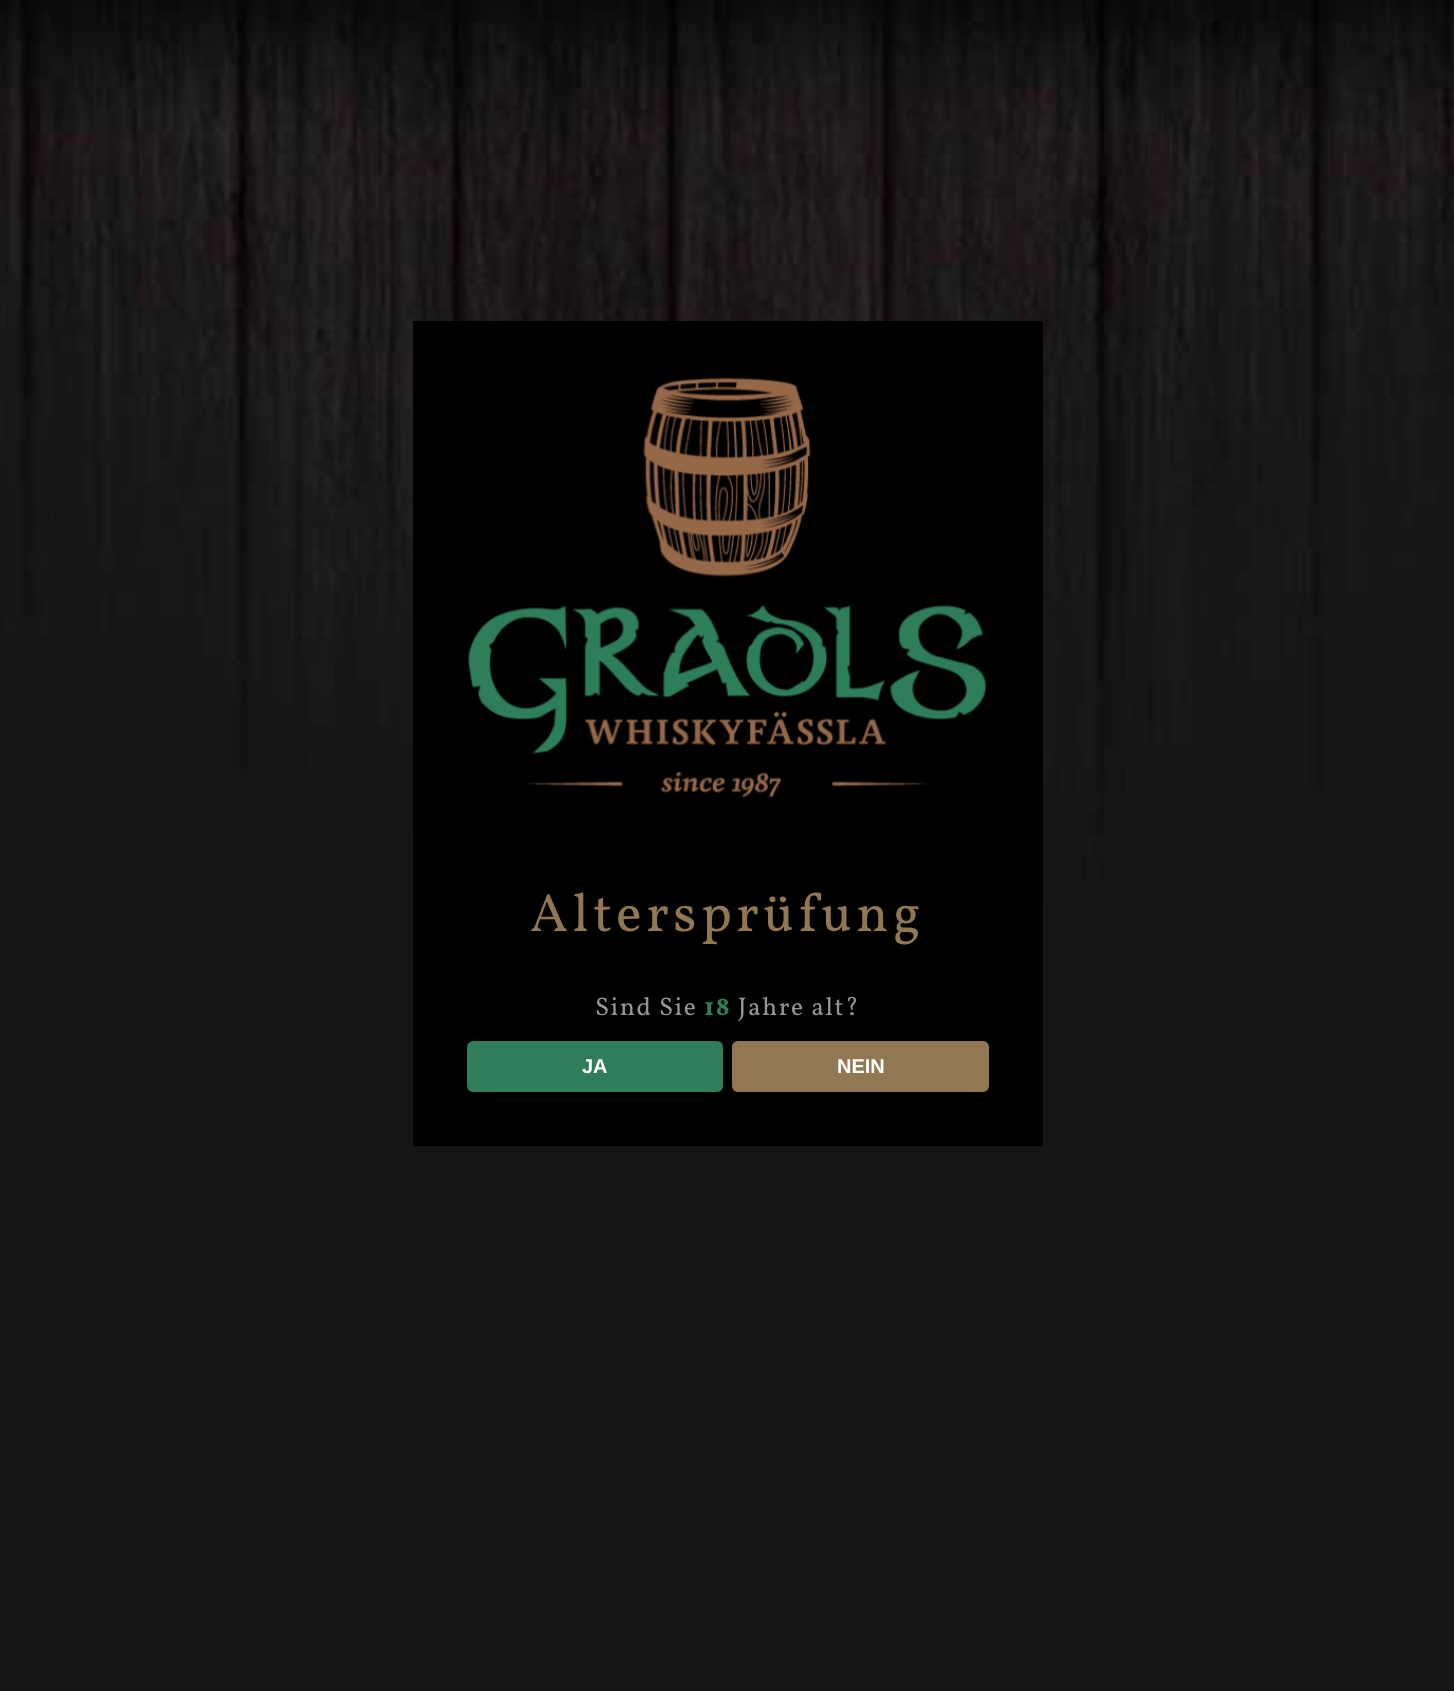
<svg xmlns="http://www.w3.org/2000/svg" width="1454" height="1691">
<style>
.a{font:54px Vollkorn;letter-spacing:4.5px;fill:#917852}
.b{font:25.5px Vollkorn;letter-spacing:1.5px;fill:#959595}
.c{font:bold 25.5px Vollkorn;letter-spacing:1.5px;fill:#317d59}
.d{font:bold 20px Liberation Sans;fill:#fff}
</style>
<rect width="100%" height="100%" fill="#fff"/>
<image href="1.png" x="0" y="0" width="1454" height="1691"/>
<path fill="#000" d="M413 321h630v825H413z"/>
<image href="2.png" x="468" y="377" width="519" height="421"/>
<rect fill="#317d59" x="467" y="1041" width="256" height="51" rx="6"/>
<rect fill="#917852" x="732" y="1041" width="257" height="51" rx="6"/>
<text class="a" x="530" y="931">Altersprüfung</text>
<text class="b" x="595" y="1015">Sind Sie</text>
<text class="c" x="704" y="1015">18</text>
<text class="b" x="738" y="1015">Jahre alt?</text>
<text class="d" x="582" y="1073">JA</text>
<text class="d" x="837" y="1073">NEIN</text>
</svg>
